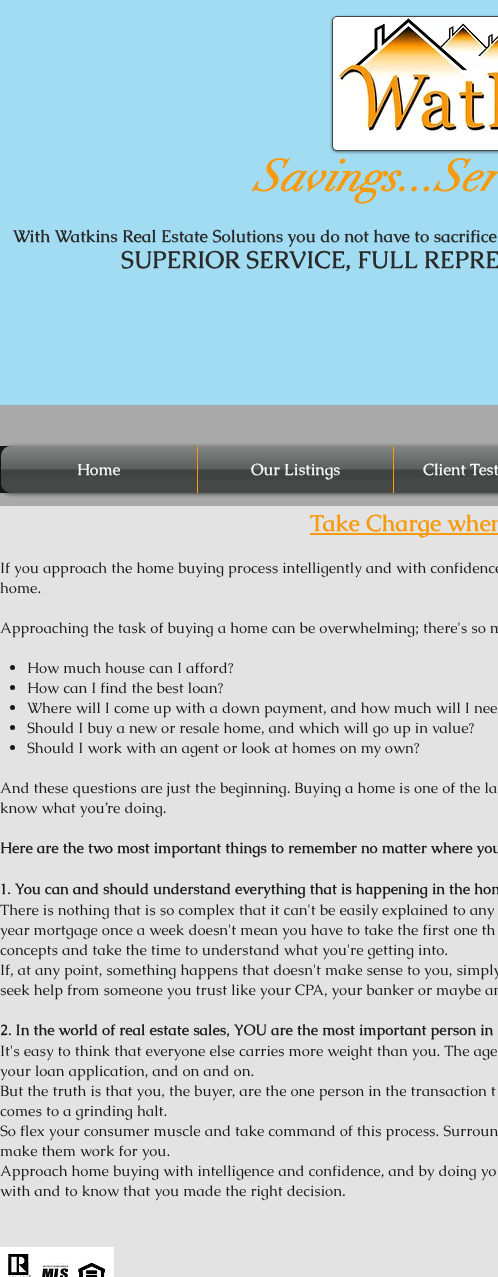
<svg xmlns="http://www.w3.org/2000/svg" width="498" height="1277">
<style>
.a{font:italic bold 44px didot;fill:#f79a0e}
.b{font:bold 17px Caudex;fill:#2a2a2a}
.c{font:bold 24px Caudex;fill:#2a2a2a}
.d{font:bold 16px Caudex;fill:#fff}
.e{font:bold 23px Caudex;fill:#f79a0e}
.f{font:15px Caudex;fill:#181919}
.g{font:bold 15px Caudex;fill:#181919}
</style>
<rect width="100%" height="100%" fill="#a9a9a9"/>
<path fill="#a1dcf2" d="M0 0h498v405H0z"/>
<rect fill="#00000080" filter="blur(1.5px)" x="332" y="17" width="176" height="135" rx="5"/>
<rect fill="none" stroke="#464747" x="332.5" y="16.5" width="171" height="134" rx="4.5"/>
<image href="1.png" x="333" y="17" width="165" height="133"/>
<path fill="#181919" d="M0 446h11v47H0z"/>
<rect fill="#00000099" filter="blur(2px)" x="1" y="447" width="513" height="47" rx="10"/>
<image href="2.png" x="1" y="446" width="10" height="10"/>
<path fill="#464747" d="M11 446h186v47h-186c-5.5 0-10-4.5-10-10v-27c0-5.5 4.5-10 10-10z"/>
<path fill="#464747" d="M198 446h195v47H198z"/>
<path fill="#f79a0e" d="M197 446h1v47H197z"/>
<path fill="#464747" d="M394 446h104v47H394z"/>
<path fill="#f79a0e" d="M393 446h1v47H393z"/>
<path fill="#e3e3e3" d="M0 506h498v771H0z"/>
<path fill="#f79a0e" d="M310 533h188v2H310z"/>
<circle fill="#181919" cx="12.5" cy="667.5" r="2.5"/>
<circle fill="#181919" cx="12.5" cy="687.5" r="2.5"/>
<circle fill="#181919" cx="12.5" cy="707.5" r="2.5"/>
<circle fill="#181919" cx="12.5" cy="727.5" r="2.5"/>
<circle fill="#181919" cx="12.5" cy="747.5" r="2.5"/>
<image href="6.png" x="0" y="1247" width="114" height="30"/>
<text class="a" x="254" y="191">Savings...Ser</text>
<text class="b" x="13" y="242">With Watkins Real Estate Solutions you do not have to sacrifice</text>
<text class="c" x="121" y="268">SUPERIOR SERVICE, FULL REPRE</text>
<text class="d" x="77" y="475">Home</text>
<image href="3.png" x="1" y="446" width="196" height="31"/>
<text class="d" x="251" y="475">Our Listings</text>
<image href="4.png" x="198" y="446" width="195" height="34"/>
<text class="d" x="423" y="475">Client Test</text>
<image href="5.png" x="394" y="446" width="104" height="31"/>
<text class="e" x="310" y="531">Take Charge when</text>
<text class="f" x="0" y="573">If you approach the home buying process intelligently and with confidence</text>
<text class="f" x="0" y="593">home.</text>
<text class="f" x="0" y="633">Approaching the task of buying a home can be overwhelming; there's so m</text>
<text class="f" x="27" y="673">How much house can I afford?</text>
<text class="f" x="27" y="693">How can I find the best loan?</text>
<text class="f" x="27" y="713">Where will I come up with a down payment, and how much will I nee</text>
<text class="f" x="27" y="733">Should I buy a new or resale home, and which will go up in value?</text>
<text class="f" x="27" y="753">Should I work with an agent or look at homes on my own?</text>
<text class="f" x="0" y="793">And these questions are just the beginning. Buying a home is one of the la</text>
<text class="f" x="0" y="813">know what you’re doing.</text>
<text class="g" x="0" y="853">Here are the two most important things to remember no matter where you</text>
<text class="g" x="0" y="894">1. You can and should understand everything that is happening in the hom</text>
<text class="f" x="0" y="915">There is nothing that is so complex that it can't be easily explained to any</text>
<text class="f" x="0" y="935">year mortgage once a week doesn't mean you have to take the first one th</text>
<text class="f" x="0" y="955">concepts and take the time to understand what you're getting into.</text>
<text class="f" x="0" y="975">If, at any point, something happens that doesn't make sense to you, simply</text>
<text class="f" x="0" y="995">seek help from someone you trust like your CPA, your banker or maybe an</text>
<text class="g" x="0" y="1035">2. In the world of real estate sales, YOU are the most important person in</text>
<text class="f" x="0" y="1056">It's easy to think that everyone else carries more weight than you. The age</text>
<text class="f" x="0" y="1076">your loan application, and on and on.</text>
<text class="f" x="0" y="1096">But the truth is that you, the buyer, are the one person in the transaction t</text>
<text class="f" x="0" y="1116">comes to a grinding halt.</text>
<text class="f" x="0" y="1136">So flex your consumer muscle and take command of this process. Surroun</text>
<text class="f" x="0" y="1156">make them work for you.</text>
<text class="f" x="0" y="1176">Approach home buying with intelligence and confidence, and by doing yo</text>
<text class="f" x="0" y="1196">with and to know that you made the right decision.</text>
</svg>
